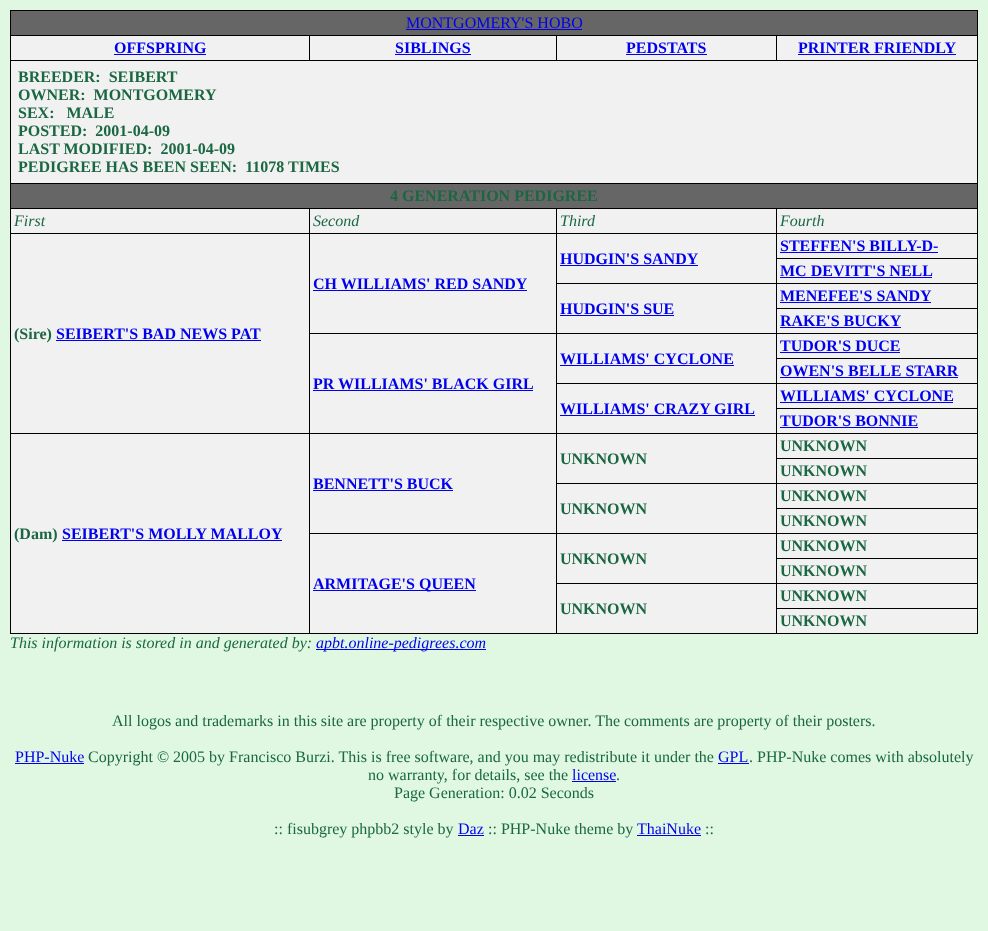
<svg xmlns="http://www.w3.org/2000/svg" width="988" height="931">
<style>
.a{font:16px Liberation Serif;fill:#00e}
.b{font:bold 16px Liberation Serif;fill:#00e}
.c{font:bold 16px Liberation Serif;fill:#1a6742}
.d{font:italic 16px Liberation Serif;fill:#1a6742}
.e{font:italic 16px Liberation Serif;fill:#00e}
.f{font:16px Liberation Serif;fill:#1a6742}
</style>
<rect width="100%" height="100%" fill="#e0f8e2"/>
<path fill="#000" d="M10 10h968v624H10z"/>
<path fill="#666" d="M11 11h966v24H11z"/>
<path fill="#00e" d="M406 29h176v1H406z"/>
<path fill="#f1f1f1" d="M11 36h298v24H11z"/>
<path fill="#00e" d="M114 54h92v1H114z"/>
<path fill="#f1f1f1" d="M310 36h246v24H310z"/>
<path fill="#00e" d="M395 54h76v1H395z"/>
<path fill="#f1f1f1" d="M557 36h219v24H557z"/>
<path fill="#00e" d="M626 54h81v1H626z"/>
<path fill="#f1f1f1" d="M777 36h200v24H777z"/>
<path fill="#00e" d="M798 54h158v1H798z"/>
<path fill="#f1f1f1" d="M11 61h966v122H11z"/>
<path fill="#666" d="M11 184h966v24H11z"/>
<path fill="#f1f1f1" d="M11 209h298v24H11z"/>
<path fill="#f1f1f1" d="M310 209h246v24H310z"/>
<path fill="#f1f1f1" d="M557 209h219v24H557z"/>
<path fill="#f1f1f1" d="M777 209h200v24H777z"/>
<path fill="#f1f1f1" d="M777 234h200v24H777z"/>
<path fill="#00e" d="M780 252h158v1H780z"/>
<path fill="#f1f1f1" d="M557 234h219v49H557z"/>
<path fill="#00e" d="M560 265h138v1H560z"/>
<path fill="#f1f1f1" d="M310 234h246v99H310z"/>
<path fill="#00e" d="M313 290h214v1H313z"/>
<path fill="#f1f1f1" d="M11 234h298v199H11z"/>
<path fill="#00e" d="M56 340h205v1H56z"/>
<path fill="#f1f1f1" d="M777 259h200v24H777z"/>
<path fill="#00e" d="M780 277h152v1H780z"/>
<path fill="#f1f1f1" d="M777 284h200v24H777z"/>
<path fill="#00e" d="M780 302h151v1H780z"/>
<path fill="#f1f1f1" d="M557 284h219v49H557z"/>
<path fill="#00e" d="M560 315h114v1H560z"/>
<path fill="#f1f1f1" d="M777 309h200v24H777z"/>
<path fill="#00e" d="M780 327h121v1H780z"/>
<path fill="#f1f1f1" d="M777 334h200v24H777z"/>
<path fill="#00e" d="M780 352h120v1H780z"/>
<path fill="#f1f1f1" d="M557 334h219v49H557z"/>
<path fill="#00e" d="M560 365h174v1H560z"/>
<path fill="#f1f1f1" d="M310 334h246v99H310z"/>
<path fill="#00e" d="M313 390h220v1H313z"/>
<path fill="#f1f1f1" d="M777 359h200v24H777z"/>
<path fill="#00e" d="M780 377h178v1H780z"/>
<path fill="#f1f1f1" d="M777 384h200v24H777z"/>
<path fill="#00e" d="M780 402h173v1H780z"/>
<path fill="#f1f1f1" d="M557 384h219v49H557z"/>
<path fill="#00e" d="M560 415h195v1H560z"/>
<path fill="#f1f1f1" d="M777 409h200v24H777z"/>
<path fill="#00e" d="M780 427h138v1H780z"/>
<path fill="#f1f1f1" d="M777 434h200v24H777z"/>
<path fill="#f1f1f1" d="M557 434h219v49H557z"/>
<path fill="#f1f1f1" d="M310 434h246v99H310z"/>
<path fill="#00e" d="M313 490h140v1H313z"/>
<path fill="#f1f1f1" d="M11 434h298v199H11z"/>
<path fill="#00e" d="M62 540h220v1H62z"/>
<path fill="#f1f1f1" d="M777 459h200v24H777z"/>
<path fill="#f1f1f1" d="M777 484h200v24H777z"/>
<path fill="#f1f1f1" d="M557 484h219v49H557z"/>
<path fill="#f1f1f1" d="M777 509h200v24H777z"/>
<path fill="#f1f1f1" d="M777 534h200v24H777z"/>
<path fill="#f1f1f1" d="M557 534h219v49H557z"/>
<path fill="#f1f1f1" d="M310 534h246v99H310z"/>
<path fill="#00e" d="M313 590h163v1H313z"/>
<path fill="#f1f1f1" d="M777 559h200v24H777z"/>
<path fill="#f1f1f1" d="M777 584h200v24H777z"/>
<path fill="#f1f1f1" d="M557 584h219v49H557z"/>
<path fill="#f1f1f1" d="M777 609h200v24H777z"/>
<path fill="#00e" d="M316 649h170v1H316z"/>
<path fill="#00e" d="M15 763h69v1H15z"/>
<path fill="#00e" d="M718 763h31v1H718z"/>
<path fill="#00e" d="M572 781h44v1H572z"/>
<path fill="#00e" d="M458 835h26v1H458z"/>
<path fill="#00e" d="M637 835h64v1H637z"/>
<text class="a" x="406" y="28">MONTGOMERY'S HOBO</text>
<text class="b" x="114" y="53">OFFSPRING</text>
<text class="b" x="395" y="53">SIBLINGS</text>
<text class="b" x="626" y="53">PEDSTATS</text>
<text class="b" x="798" y="53">PRINTER FRIENDLY</text>
<text class="c" xml:space="preserve" x="18" y="82">BREEDER:  SEIBERT</text>
<text class="c" xml:space="preserve" x="18" y="100">OWNER:  MONTGOMERY</text>
<text class="c" xml:space="preserve" x="18" y="118">SEX:   MALE</text>
<text class="c" xml:space="preserve" x="18" y="136">POSTED:  2001-04-09</text>
<text class="c" xml:space="preserve" x="18" y="154">LAST MODIFIED:  2001-04-09</text>
<text class="c" xml:space="preserve" x="18" y="172">PEDIGREE HAS BEEN SEEN:  11078 TIMES</text>
<text class="c" x="390" y="201">4 GENERATION PEDIGREE</text>
<text class="d" x="14" y="226">First</text>
<text class="d" x="313" y="226">Second</text>
<text class="d" x="560" y="226">Third</text>
<text class="d" x="780" y="226">Fourth</text>
<text class="b" x="780" y="251">STEFFEN'S BILLY-D-</text>
<text class="b" x="560" y="264">HUDGIN'S SANDY</text>
<text class="b" x="313" y="289">CH WILLIAMS' RED SANDY</text>
<text class="c" x="14" y="339">(Sire)</text>
<text class="b" x="56" y="339">SEIBERT'S BAD NEWS PAT</text>
<text class="b" x="780" y="276">MC DEVITT'S NELL</text>
<text class="b" x="780" y="301">MENEFEE'S SANDY</text>
<text class="b" x="560" y="314">HUDGIN'S SUE</text>
<text class="b" x="780" y="326">RAKE'S BUCKY</text>
<text class="b" x="780" y="351">TUDOR'S DUCE</text>
<text class="b" x="560" y="364">WILLIAMS' CYCLONE</text>
<text class="b" x="313" y="389">PR WILLIAMS' BLACK GIRL</text>
<text class="b" x="780" y="376">OWEN'S BELLE STARR</text>
<text class="b" x="780" y="401">WILLIAMS' CYCLONE</text>
<text class="b" x="560" y="414">WILLIAMS' CRAZY GIRL</text>
<text class="b" x="780" y="426">TUDOR'S BONNIE</text>
<text class="c" x="780" y="451">UNKNOWN</text>
<text class="c" x="560" y="464">UNKNOWN</text>
<text class="b" x="313" y="489">BENNETT'S BUCK</text>
<text class="c" x="14" y="539">(Dam)</text>
<text class="b" x="62" y="539">SEIBERT'S MOLLY MALLOY</text>
<text class="c" x="780" y="476">UNKNOWN</text>
<text class="c" x="780" y="501">UNKNOWN</text>
<text class="c" x="560" y="514">UNKNOWN</text>
<text class="c" x="780" y="526">UNKNOWN</text>
<text class="c" x="780" y="551">UNKNOWN</text>
<text class="c" x="560" y="564">UNKNOWN</text>
<text class="b" x="313" y="589">ARMITAGE'S QUEEN</text>
<text class="c" x="780" y="576">UNKNOWN</text>
<text class="c" x="780" y="601">UNKNOWN</text>
<text class="c" x="560" y="614">UNKNOWN</text>
<text class="c" x="780" y="626">UNKNOWN</text>
<text class="d" x="10" y="648">This information is stored in and generated by:</text>
<text class="e" x="316" y="648">apbt.online-pedigrees.com</text>
<text class="f" x="112" y="726">All logos and trademarks in this site are property of their respective owner. The comments are property of their posters.</text>
<text class="a" x="15" y="762">PHP-Nuke</text>
<text class="f" x="88" y="762">Copyright © 2005 by Francisco Burzi. This is free software, and you may redistribute it under the</text>
<text class="a" x="718" y="762">GPL</text>
<text class="f" x="749" y="762">. PHP-Nuke comes with absolutely</text>
<text class="f" x="368" y="780">no warranty, for details, see the</text>
<text class="a" x="572" y="780">license</text>
<text class="f" x="616" y="780">.</text>
<text class="f" x="394" y="798">Page Generation: 0.02 Seconds</text>
<text class="f" x="274" y="834">:: fisubgrey phpbb2 style by</text>
<text class="a" x="458" y="834">Daz</text>
<text class="f" x="488" y="834">:: PHP-Nuke theme by</text>
<text class="a" x="637" y="834">ThaiNuke</text>
<text class="f" x="705" y="834">::</text>
</svg>
